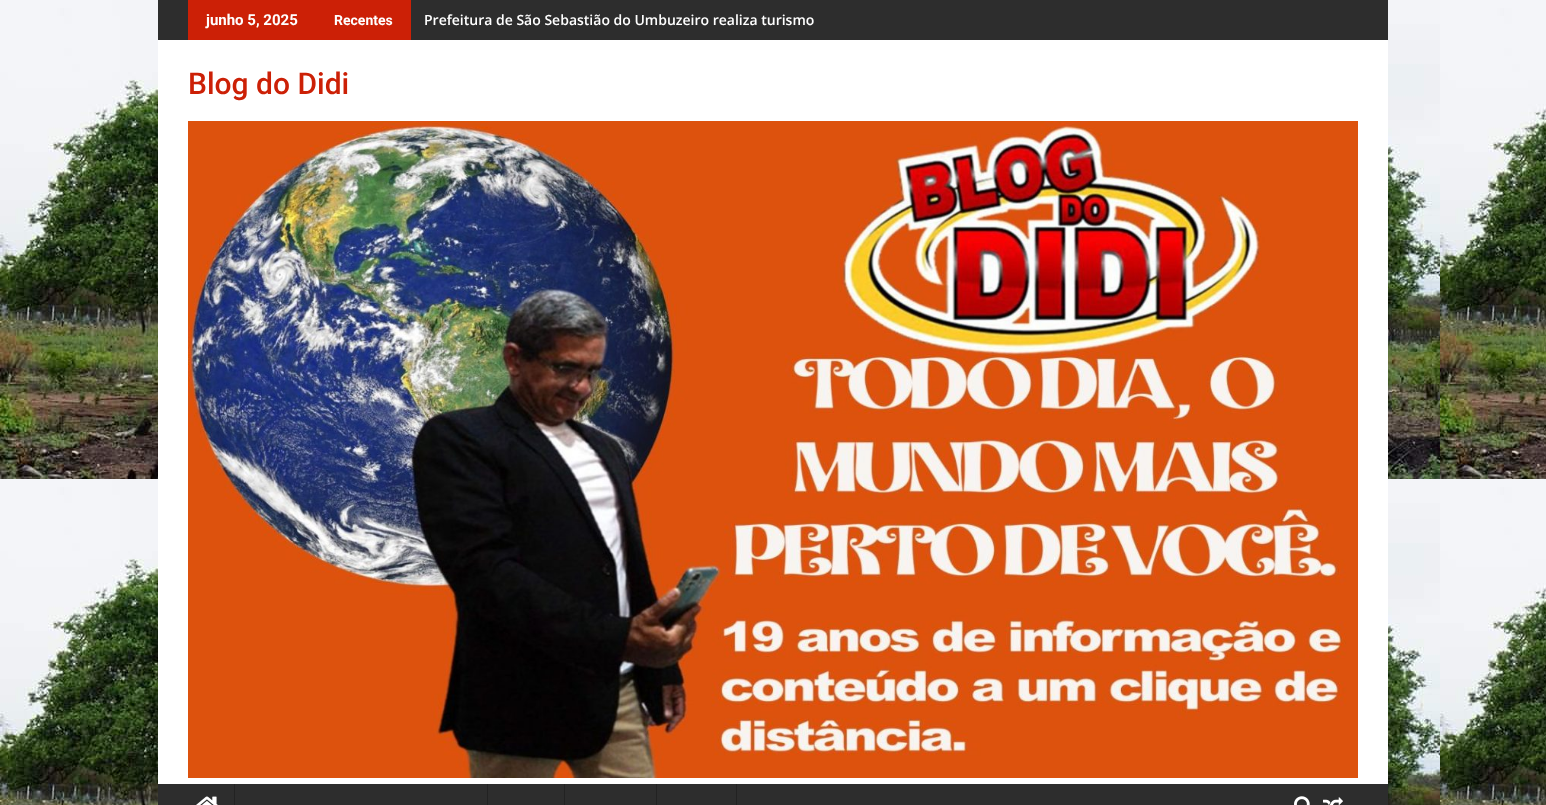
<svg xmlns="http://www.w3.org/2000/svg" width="1546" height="805">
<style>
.a{font:bold 15px Roboto;fill:#fff}
.b{font:bold 14px Roboto;fill:#fff}
.c{font:600 14px Open Sans;fill:#fff}
.d{font:500 30px Roboto;fill:#cc2006}
</style>
<rect width="100%" height="100%" fill="#fff"/>
<image href="1.png" x="0" y="0" width="1546" height="805"/>
<path fill="#fff" d="M158 40h1230v744H158z"/>
<path fill="#2d2d2d" d="M158 0h1230v40H158z"/>
<path fill="#cc2006" d="M188 0h223v40H188z"/>
<image href="2.png" x="188" y="121" width="1170" height="657"/>
<path fill="#2d2d2d" d="M158 784h1230v21H158z"/>
<image href="3.png" x="196" y="796" width="22" height="9"/>
<path fill="#222" d="M234 784h1v21H234z"/>
<path fill="#222" d="M487 784h1v21H487z"/>
<path fill="#222" d="M564 784h1v21H564z"/>
<path fill="#222" d="M656 784h1v21H656z"/>
<path fill="#222" d="M736 784h1v21H736z"/>
<image href="4.png" x="1294" y="796" width="16" height="9"/>
<image href="5.png" x="1323" y="797" width="20" height="8"/>
<text class="a" x="206" y="25">junho 5, 2025</text>
<text class="b" x="334" y="25">Recentes</text>
<text class="c" x="424" y="25">Prefeitura de São Sebastião do Umbuzeiro realiza turismo</text>
<text class="d" x="188" y="94">Blog do Didi</text>
</svg>
